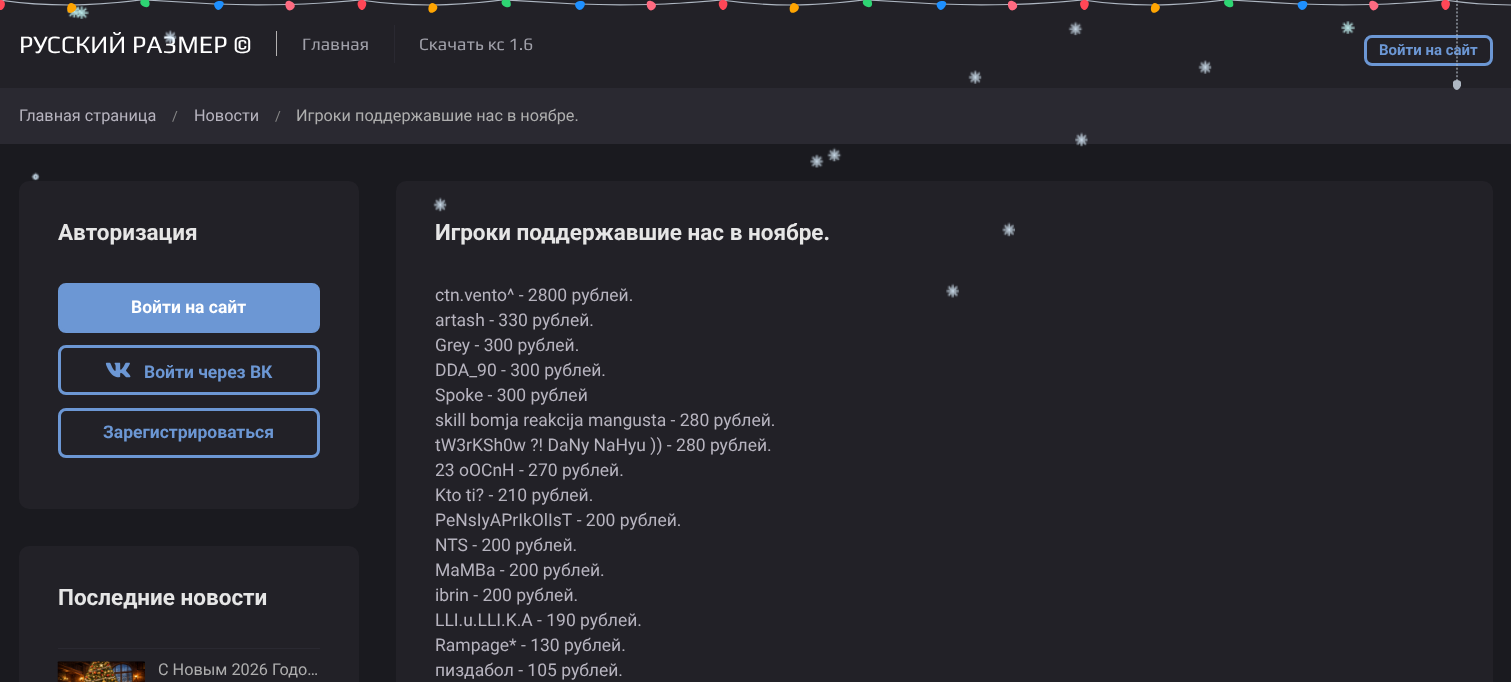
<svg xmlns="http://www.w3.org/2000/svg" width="1511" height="682">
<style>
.a{font:25px Play;fill:#fff}
.b{font:17.5px Play;fill:#a0a0a9}
.c{font:bold 15px Roboto;fill:#6c97d4}
.d{font:16.25px Roboto;fill:#b7b4bf}
.e{font:14px Roboto;fill:#878787}
.f{font:16.25px Roboto;fill:#aeaeae}
.g{font:bold 22.5px Roboto;fill:#e6e6e6}
.h{font:bold 17.5px Roboto;fill:#fff}
.i{font:bold 17.5px Roboto;fill:#6c97d4}
.j{font:17.5px Roboto;fill:#b7b4bf}
</style>
<defs>
<clipPath id="clip1"><path d="M1453 0h8v103H1453z"/></clipPath>
</defs>
<rect width="100%" height="100%" fill="#1a1a1f"/>
<path fill="#222127" d="M0 0h1511v88H0z"/>
<image href="2.png" x="74" y="6" width="15" height="13"/>
<image href="1.png" x="67" y="4" width="14" height="14"/>
<image href="3.png" x="1068" y="21" width="15" height="15"/>
<image href="4.png" x="1341" y="21" width="14" height="13"/>
<path fill="none" stroke="#aeb7c2" stroke-width="1.2" d="M-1 0c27 4 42.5 5 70 5"/>
<path fill="#ff4757" d="M.5 10c-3.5 0-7.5-10 0-10c7.5 0 4 10 0 10z"/>
<path fill="none" stroke="#aeb7c2" stroke-width="1.2" d="M141 0c0 0-42.5 5-70 5"/>
<path fill="#ffa502" d="M68.5 12.5c-3-2-1-12.5 5.5-8.5c6.5 4-2 10.5-5.5 8.5z"/>
<path fill="none" stroke="#aeb7c2" stroke-width="1.2" d="M145 0l70 4"/>
<path fill="#2ed573" d="M148.5 6.5c-3 2.5-12-2.5-6.5-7.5c6-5 9.5 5.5 6.5 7.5z"/>
<path fill="none" stroke="#aeb7c2" stroke-width="1.2" d="M217.5 4c23.5 1 46.5 1 70 .5"/>
<path fill="#1e90ff" d="M223.5 2.5c1.5 3-5 11.5-8.5 5c-4-6.5 6.5-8 8.5-5z"/>
<path fill="none" stroke="#aeb7c2" stroke-width="1.2" d="M360.5 0c-27.5 2.5-47.5 4-70 4.5"/>
<path fill="#ff6b81" d="M286.5 1.5c3-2.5 12 3 6.5 7.5c-6 5-9.5-5-6.5-7.5z"/>
<path fill="none" stroke="#aeb7c2" stroke-width="1.2" d="M360 0c27 4 42.5 5 70 5"/>
<path fill="#ff4757" d="M362 10c-4 0-7.5-10 0-10c7.5 0 3.5 10 0 10z"/>
<path fill="none" stroke="#aeb7c2" stroke-width="1.2" d="M502.5 0c0 0-42.5 5-70 5"/>
<path fill="#ffa502" d="M430 12.5c-3.5-2-1-12.5 5-8.5c6.5 4-2 10.5-5 8.5z"/>
<path fill="none" stroke="#aeb7c2" stroke-width="1.2" d="M506 0l70 4"/>
<path fill="#2ed573" d="M510 6.5c-3 2.5-12.5-2.5-6.5-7.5c5.5-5 9 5.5 6.5 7.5z"/>
<path fill="none" stroke="#aeb7c2" stroke-width="1.2" d="M579 4c23 1 46.5 1 70 .5"/>
<path fill="#1e90ff" d="M584.5 2.5c2 3-4.5 11.5-8.5 5c-4-6.5 6.5-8 8.5-5z"/>
<path fill="none" stroke="#aeb7c2" stroke-width="1.2" d="M722 0c-28 2.5-47.5 4-70 4.5"/>
<path fill="#ff6b81" d="M647.5 1.5c3-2.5 12.5 3 6.5 7.5c-5.5 5-9-5-6.5-7.5z"/>
<path fill="none" stroke="#aeb7c2" stroke-width="1.2" d="M721 0c27.5 4 43 5 70 5"/>
<path fill="#ff4757" d="M723 10c-3.5 0-7.5-10 0-10c7.5 0 4 10 0 10z"/>
<path fill="none" stroke="#aeb7c2" stroke-width="1.2" d="M864 0c0 0-43 5-70 5"/>
<path fill="#ffa502" d="M791 12.5c-3-2-1-12.5 5.5-8.5c6.5 4-2 10.5-5.5 8.5z"/>
<path fill="none" stroke="#aeb7c2" stroke-width="1.2" d="M867.5 0l70 4"/>
<path fill="#2ed573" d="M871 6.5c-3 2.5-12-2.5-6.5-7.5c6-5 9.5 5.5 6.5 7.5z"/>
<path fill="none" stroke="#aeb7c2" stroke-width="1.2" d="M940 4c23.5 1 46.5 1 70 .5"/>
<path fill="#1e90ff" d="M946 2.5c1.5 3-5 11.5-8.5 5c-4-6.5 6.5-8 8.5-5z"/>
<path fill="none" stroke="#aeb7c2" stroke-width="1.2" d="M1083 0c-27.5 2.5-47.5 4-70 4.5"/>
<path fill="#ff6b81" d="M1009 1.5c3-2.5 12 3 6.5 7.5c-6 5-9.5-5-6.5-7.5z"/>
<path fill="none" stroke="#aeb7c2" stroke-width="1.2" d="M1082.5 0c27 4 42.5 5 70 5"/>
<path fill="#ff4757" d="M1084.5 10c-4 0-7.5-10 0-10c7.5 0 3.5 10 0 10z"/>
<path fill="none" stroke="#aeb7c2" stroke-width="1.2" d="M1225 0c0 0-42.5 5-70 5"/>
<path fill="#ffa502" d="M1152.5 12.5c-3.5-2-1-12.5 5-8.5c6.5 4-2 10.5-5 8.5z"/>
<path fill="none" stroke="#aeb7c2" stroke-width="1.2" d="M1229 0l70 4"/>
<path fill="#2ed573" d="M1232.5 6.5c-3 2.5-12.5-2.5-6.5-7.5c5.5-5 9 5.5 6.5 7.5z"/>
<path fill="none" stroke="#aeb7c2" stroke-width="1.2" d="M1301 4c23.5 1 47 1 70 .5"/>
<path fill="#1e90ff" d="M1307 2.5c2 3-4.5 11.5-8.5 5c-4-6.5 6.5-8 8.5-5z"/>
<path fill="none" stroke="#aeb7c2" stroke-width="1.2" d="M1444.5 0c-28 2.5-47.5 4-70 4.5"/>
<path fill="#ff6b81" d="M1370 1.5c3-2.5 12.5 3 6.5 7.5c-5.5 5-9-5-6.5-7.5z"/>
<path fill="none" stroke="#aeb7c2" stroke-width="1.2" d="M1444 0c27 4 42.5 5 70 5"/>
<path fill="#ff4757" d="M1445.5 10c-3.5 0-7.5-10 0-10c7.5 0 4 10 0 10z"/>
<path fill="#b3b1b1" d="M276 31h1v25H276z"/>
<path fill="#2a2931" d="M394 25h1v38H394z"/>
<rect fill="none" stroke="#6c97d4" stroke-width="3" x="1365.5" y="36.5" width="126" height="28" rx="6.5"/>
<path fill="#2a2931" d="M0 88h1511v56H0z"/>
<rect fill="#222127" x="19" y="181" width="340" height="328" rx="10"/>
<rect fill="#6c97d4" stroke="#6c97d4" stroke-width="3" x="59.5" y="284.5" width="259" height="47" rx="6.5"/>
<rect fill="none" stroke="#6c97d4" stroke-width="3" x="59.5" y="346.5" width="259" height="47" rx="6.5"/>
<image href="6.png" x="105" y="362" width="26" height="16"/>
<rect fill="none" stroke="#6c97d4" stroke-width="3" x="59.5" y="409.5" width="259" height="47" rx="6.5"/>
<rect fill="#222127" x="19" y="546" width="340" height="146" rx="10"/>
<path fill="#2a2931" d="M58 648h262v1H58z"/>
<image href="7.png" x="57" y="661" width="88" height="21"/>
<rect fill="#222127" x="396" y="181" width="1097" height="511" rx="10"/>
<image href="8.png" x="1198" y="60" width="14" height="14"/>
<image href="9.png" x="968" y="70" width="14" height="14"/>
<image href="10.png" x="1075" y="132" width="13" height="15"/>
<image href="11.png" x="810" y="154" width="14" height="14"/>
<image href="12.png" x="827" y="147" width="15" height="15"/>
<image href="13.png" x="31" y="172" width="9" height="9"/>
<image href="14.png" x="433" y="197" width="14" height="15"/>
<image href="15.png" x="1002" y="222" width="13" height="15"/>
<image href="16.png" x="946" y="283" width="13" height="15"/>
<text class="a" x="19" y="53">РУССКИЙ РАЗМЕР ©</text>
<image href="5.png" x="163" y="30" width="14" height="14"/>
<text class="b" x="302" y="50">Главная</text>
<text class="b" x="419" y="50">Скачать кс 1.6</text>
<text class="c" x="1379" y="55">Войти на сайт</text>
<path fill="none" stroke="#aeb7c2" stroke-width="1.2" stroke-linecap="round" stroke-dasharray="1.25 2.5" d="M1457-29.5v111.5"/>
<g clip-path="url(#clip1)">
<path fill="#aeb7c2" d="M1457 90c-4 0-7.5-10 0-10c7.5 0 3.5 10 0 10"/>
</g>
<text class="d" x="19" y="121">Главная страница</text>
<text class="e" x="172" y="121">/</text>
<text class="d" x="194" y="121">Новости</text>
<text class="e" x="275" y="121">/</text>
<text class="f" x="296" y="121">Игроки поддержавшие нас в ноябре.</text>
<text class="g" x="58" y="240">Авторизация</text>
<text class="h" x="131" y="313">Войти на сайт</text>
<text class="i" x="144" y="378">Войти через ВК</text>
<text class="i" x="103" y="438">Зарегистрироваться</text>
<text class="g" x="58" y="605">Последние новости</text>
<text class="f" x="158" y="675">С Новым 2026 Годо…</text>
<text class="g" x="435" y="240">Игроки поддержавшие нас в ноябре.</text>
<text class="j" x="435" y="301">ctn.vento^ - 2800 рублей.</text>
<text class="j" x="435" y="326">artash - 330 рублей.</text>
<text class="j" x="435" y="351">Grey - 300 рублей.</text>
<text class="j" x="435" y="376">DDA_90 - 300 рублей.</text>
<text class="j" x="435" y="401">Spoke - 300 рублей</text>
<text class="j" x="435" y="426">skill bomja reakcija mangusta - 280 рублей.</text>
<text class="j" x="435" y="451">tW3rKSh0w ?! DaNy NaHyu )) - 280 рублей.</text>
<text class="j" x="435" y="476">23 oOCnH - 270 рублей.</text>
<text class="j" x="435" y="501">Kto ti? - 210 рублей.</text>
<text class="j" x="435" y="526">PeNsIyAPrIkOlIsT - 200 рублей.</text>
<text class="j" x="435" y="551">NTS - 200 рублей.</text>
<text class="j" x="435" y="576">MaMBa - 200 рублей.</text>
<text class="j" x="435" y="601">ibrin - 200 рублей.</text>
<text class="j" x="435" y="626">LLI.u.LLI.K.A - 190 рублей.</text>
<text class="j" x="435" y="651">Rampage* - 130 рублей.</text>
<text class="j" x="435" y="676">пиздабол - 105 рублей.</text>
</svg>
